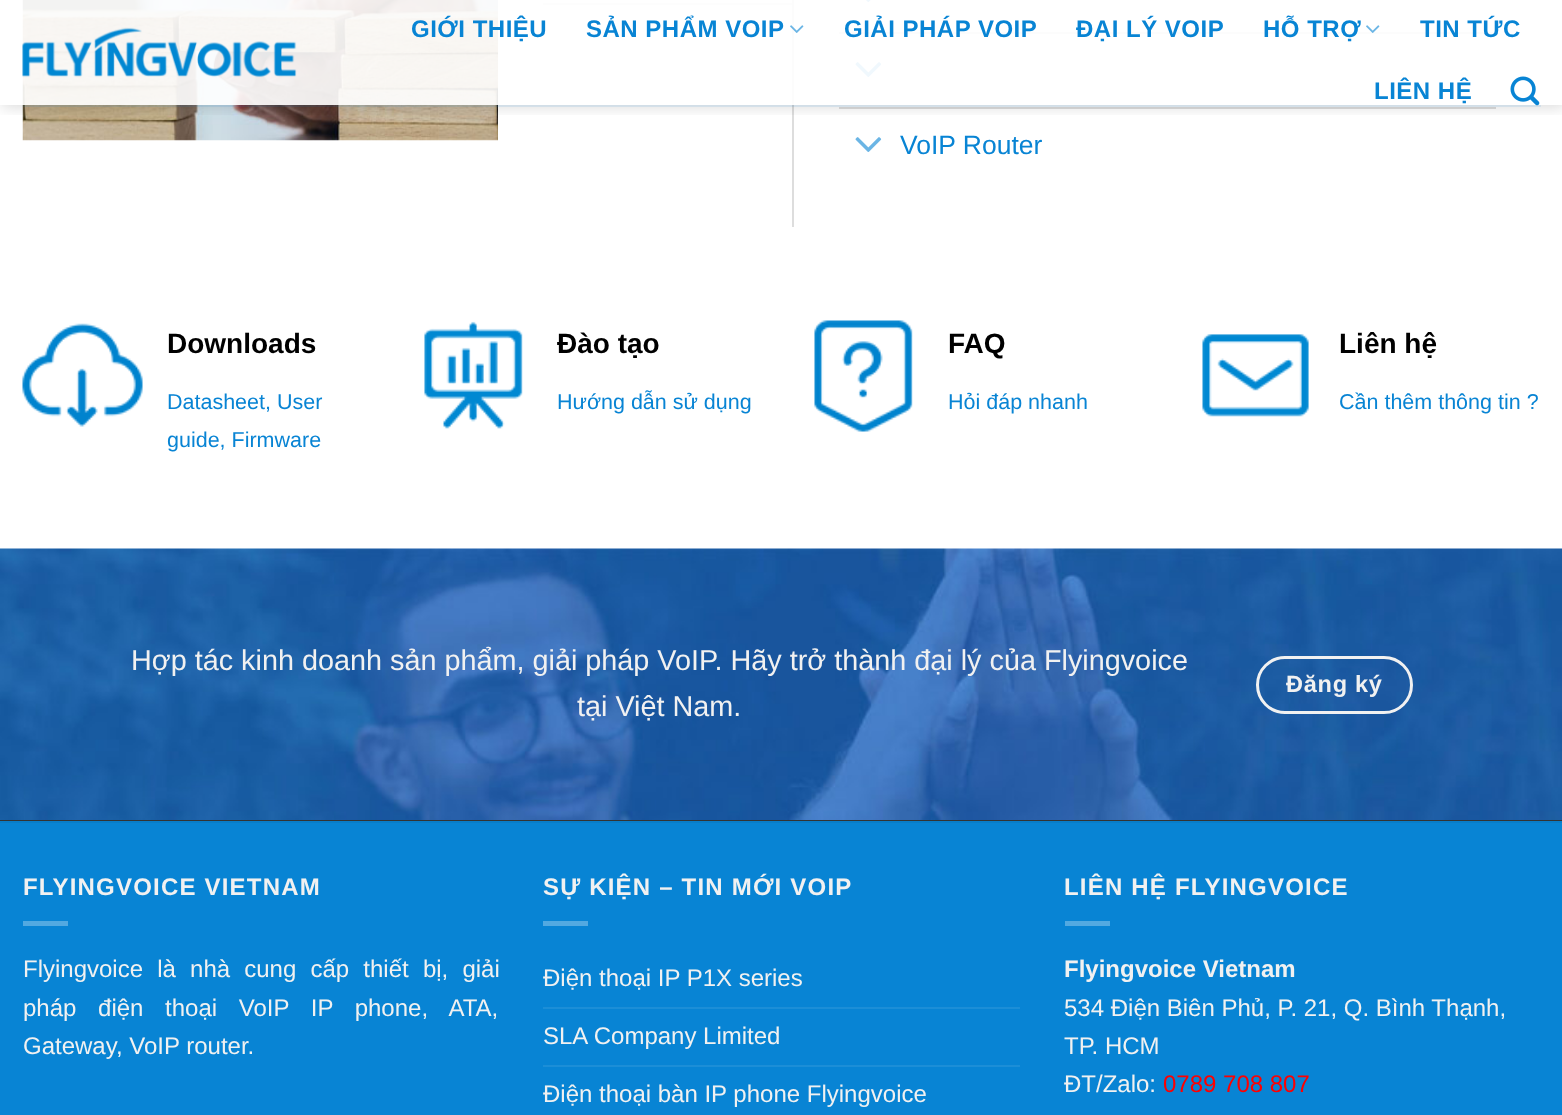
<svg xmlns="http://www.w3.org/2000/svg" width="1562" height="1115">
<style>
.a{font:bold 24px Liberation Sans;letter-spacing:0.5px;fill:#0884d4}
.b{font:26.5px Liberation Sans;fill:#0884d4}
.c{font:bold 28px Liberation Sans;fill:#000}
.d{font:21.5px Liberation Sans;fill:#0884d4}
.e{font:28.8px Liberation Sans;fill:#f1f1f1}
.f{font:bold 23.5px Liberation Sans;letter-spacing:0.75px;fill:#f1f1f1}
.g{font:bold 24px Liberation Sans;letter-spacing:1.2px;fill:#f1f1f1}
.h{font:24px Liberation Sans;fill:#f1f1f1}
.i{font:bold 24px Liberation Sans;fill:#f1f1f1}
.j{font:24px Liberation Sans;fill:#f00}
</style>
<defs>
<clipPath id="clip1"><path d="M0 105h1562v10H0z"/></clipPath>
</defs>
<rect width="100%" height="100%" fill="#fff"/>
<image href="5.png" x="22" y="0" width="476" height="141"/>
<path fill="#ececec" d="M543 3h249v2H543z"/>
<path fill="#ddd" d="M792 0h2v227H792z"/>
<image href="6.png" x="866" y="0" width="5" height="2"/>
<path fill="#ddd" d="M839 32h657v2H839z"/>
<image href="7.png" x="855" y="62" width="27" height="15"/>
<path fill="#ddd" d="M839 107h657v2H839z"/>
<g clip-path="url(#clip1)">
<path fill="#00000026" filter="blur(7.5px)" d="M2 2h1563v105H2z"/>
</g>
<path fill="#ffffffe6" d="M22 0h1474v105H22z"/>
<image href="1.png" x="22" y="27" width="275" height="51"/>
<image href="2.png" x="790" y="25" width="14" height="8"/>
<image href="3.png" x="1366" y="25" width="14" height="8"/>
<image href="4.png" x="1510" y="76" width="30" height="30"/>
<path fill="#0884d41a" d="M23 105h1518v2H23z"/>
<image href="7.png" x="855" y="137" width="27" height="15"/>
<image href="8.png" x="22" y="323" width="121" height="104"/>
<image href="9.png" x="424" y="321" width="99" height="108"/>
<image href="10.png" x="814" y="320" width="99" height="112"/>
<image href="11.png" x="1202" y="334" width="107" height="83"/>
<path fill="#333" d="M0 820h1562v1H0z"/>
<image href="12.png" x="0" y="548" width="1562" height="272"/>
<rect fill="none" stroke="#f1f1f1" stroke-width="3" x="1257.5" y="657.5" width="154" height="55" rx="27.5"/>
<path fill="#0884d4" d="M0 823h1562v292H0z"/>
<path fill="#087dc9" d="M0 821h1562v2H0z"/>
<path fill="#52a9e1" d="M23 921h45v5H23z"/>
<path fill="#52a9e1" d="M543 921h45v5H543z"/>
<path fill="#1c8ed7" d="M543 1007h477v2H543z"/>
<path fill="#1c8ed7" d="M543 1065h477v2H543z"/>
<path fill="#52a9e1" d="M1065 921h45v5H1065z"/>
<text class="a" x="411" y="37">GIỚI THIỆU</text>
<text class="a" x="586" y="37">SẢN PHẨM VOIP</text>
<text class="a" x="844" y="37">GIẢI PHÁP VOIP</text>
<text class="a" x="1076" y="37">ĐẠI LÝ VOIP</text>
<text class="a" x="1263" y="37">HỖ TRỢ</text>
<text class="a" x="1420" y="37">TIN TỨC</text>
<text class="a" x="1374" y="99">LIÊN HỆ</text>
<text class="b" x="900" y="154">VoIP Router</text>
<text class="c" x="167" y="353">Downloads</text>
<text class="d" x="167" y="409">Datasheet, User</text>
<text class="d" x="167" y="447">guide, Firmware</text>
<text class="c" x="557" y="353">Đào tạo</text>
<text class="d" x="557" y="409">Hướng dẫn sử dụng</text>
<text class="c" x="948" y="353">FAQ</text>
<text class="d" x="948" y="409">Hỏi đáp nhanh</text>
<text class="c" x="1339" y="353">Liên hệ</text>
<text class="d" x="1339" y="409">Cần thêm thông tin ?</text>
<text class="e" x="131" y="670">Hợp tác kinh doanh sản phẩm, giải pháp VoIP. Hãy trở thành đại lý của Flyingvoice</text>
<text class="e" x="577" y="716">tại Việt Nam.</text>
<text class="f" x="1286" y="692">Đăng ký</text>
<text class="g" x="23" y="895">FLYINGVOICE VIETNAM</text>
<text class="h" x="23" y="977" word-spacing="7.5">Flyingvoice là nhà cung cấp thiết bị, giải</text>
<text class="h" x="23" y="1016" word-spacing="15">pháp điện thoại VoIP IP phone, ATA,</text>
<text class="h" x="23" y="1054">Gateway, VoIP router.</text>
<text class="g" x="543" y="895">SỰ KIỆN – TIN MỚI VOIP</text>
<text class="h" x="543" y="986">Điện thoại IP P1X series</text>
<text class="h" x="543" y="1044">SLA Company Limited</text>
<text class="h" x="543" y="1102">Điện thoại bàn IP phone Flyingvoice</text>
<text class="g" x="1064" y="895">LIÊN HỆ FLYINGVOICE</text>
<text class="i" x="1064" y="977">Flyingvoice Vietnam</text>
<text class="h" x="1064" y="1016">534 Điện Biên Phủ, P. 21, Q. Bình Thạnh,</text>
<text class="h" x="1064" y="1054">TP. HCM</text>
<text class="h" x="1064" y="1092">ĐT/Zalo:</text>
<text class="j" x="1163" y="1092">0789 708 807</text>
</svg>
